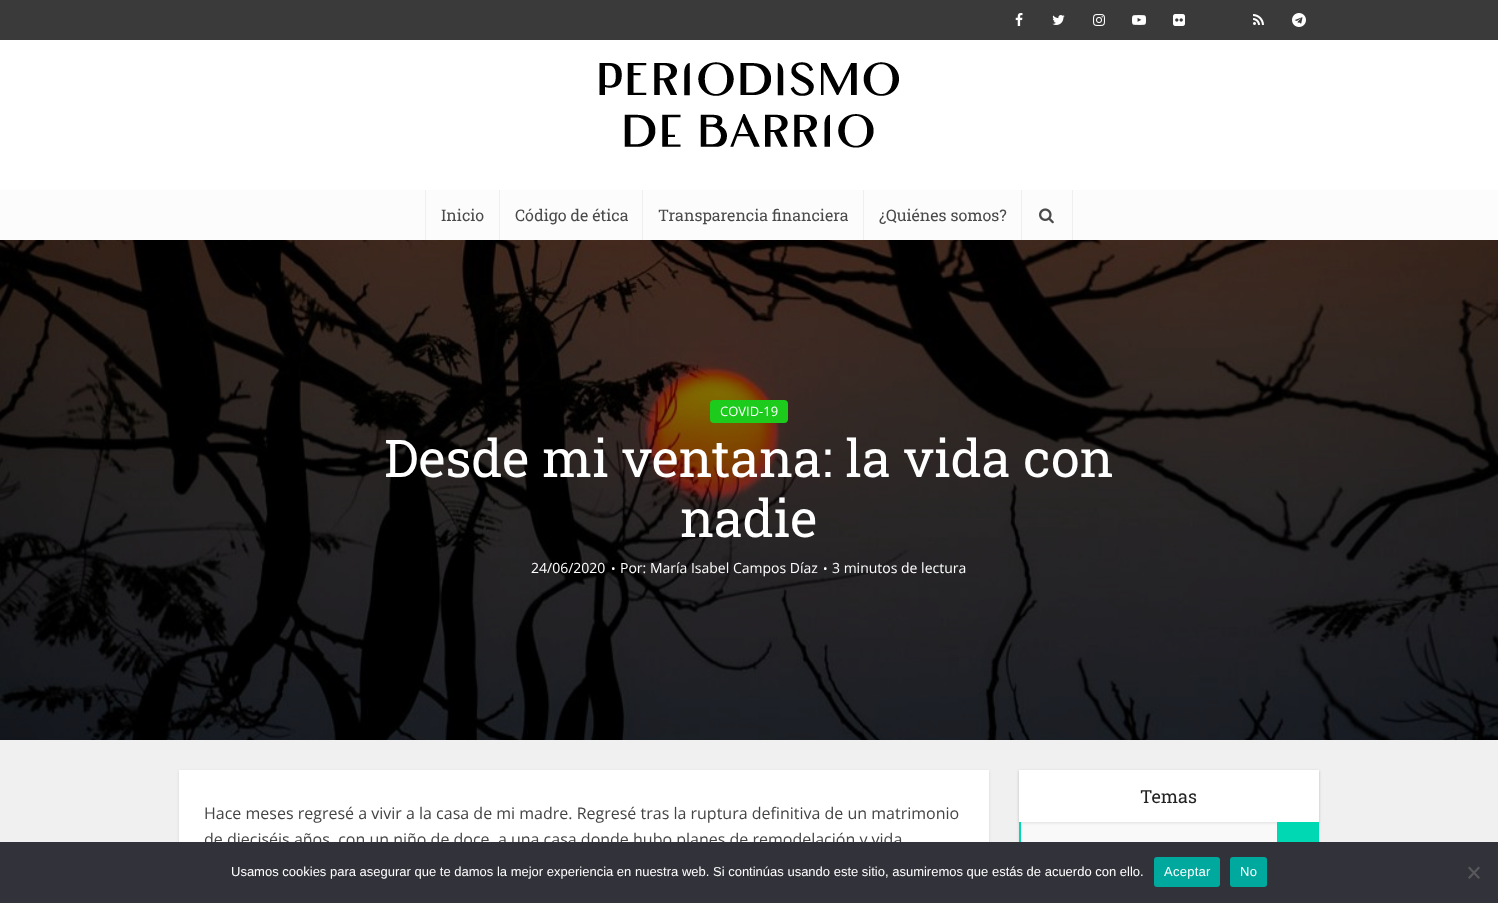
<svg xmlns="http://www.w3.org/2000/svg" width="1498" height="903">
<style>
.a{font:16px Roboto Slab;fill:#4a4a4a}
.b{font:13px Open Sans;fill:#fff}
.c{font:52px Roboto Slab;fill:#fff}
.d{font:14px Open Sans;fill:#fff}
.e{font:12px Open Sans;fill:#fff}
.f{font:18px Roboto Slab;fill:#232323}
.g{font:16px Open Sans;fill:#444}
.h{font:13px Liberation Sans;fill:#fff}
.i{font:13px Liberation Sans;letter-spacing:0.25px;fill:#fff}
</style>
<rect width="100%" height="100%" fill="#f0f0f0"/>
<path fill="#fff" d="M0 40h1498v150H0z"/>
<path fill="#3a3a3a" d="M0 0h1498v40H0z"/>
<image href="1.png" x="1015" y="13" width="8" height="13"/>
<image href="2.png" x="1052" y="15" width="13" height="10"/>
<image href="3.png" x="1093" y="14" width="12" height="12"/>
<image href="4.png" x="1132" y="15" width="14" height="10"/>
<image href="5.png" x="1173" y="14" width="12" height="12"/>
<image href="6.png" x="1253" y="14" width="11" height="11"/>
<image href="7.png" x="1292" y="13" width="14" height="14"/>
<image href="8.png" x="599" y="62" width="300" height="86"/>
<path fill="#fcfcfc" d="M0 190h1498v50H0z"/>
<path fill="#efefef" d="M425 190h1v50H425z"/>
<path fill="#efefef" d="M499 190h1v50H499z"/>
<path fill="#efefef" d="M642 190h1v50H642z"/>
<path fill="#efefef" d="M863 190h1v50H863z"/>
<path fill="#efefef" d="M1072 190h1v50H1072z"/>
<path fill="#efefef" d="M1021 190h1v50H1021z"/>
<image href="9.png" x="1039" y="208" width="15" height="16"/>
<image href="10.png" x="0" y="240" width="1498" height="500"/>
<rect fill="#1dcb1d" x="710" y="400" width="78" height="23" rx="4"/>
<path fill="#0000001a" filter="blur(1.5px)" d="M1019 771h300v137H1019z"/>
<path fill="#f9f9f9" d="M1021 822h256v20H1021z"/>
<path fill="#0000001a" filter="blur(1.5px)" d="M1019 771h300v52H1019z"/>
<path fill="#fff" d="M1019 770h300v52H1019z"/>
<path fill="#00d8b4" d="M1019 822h2v20H1019z"/>
<path fill="#00d8b4" d="M1277 822h42v20H1277z"/>
<path fill="#0000001a" filter="blur(1.5px)" d="M179 771h810v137H179z"/>
<path fill="#fff" d="M179 770h810v72H179z"/>
<text class="a" x="441" y="221">Inicio</text>
<text class="a" x="515" y="221">Código de ética</text>
<text class="a" x="658" y="221">Transparencia financiera</text>
<text class="a" x="879" y="221">¿Quiénes somos?</text>
<text class="b" x="720" y="416">COVID-19</text>
<text class="c" x="384" y="477">Desde mi ventana: la vida con</text>
<text class="c" x="680" y="537">nadie</text>
<text class="d" x="531" y="573">24/06/2020</text>
<text class="e" x="611" y="573">•</text>
<text class="d" x="620" y="573">Por: María Isabel Campos Díaz</text>
<text class="e" x="823" y="573">•</text>
<text class="d" x="832" y="573">3 minutos de lectura</text>
<text class="f" x="1140" y="803">Temas</text>
<text class="g" x="204" y="819">Hace meses regresé a vivir a la casa de mi madre. Regresé tras la ruptura definitiva de un matrimonio</text>
<text class="g" x="204" y="845">de dieciséis años, con un niño de doce, a una casa donde hubo planes de remodelación y vida</text>
<path fill="#32323a" d="M0 842h1498v61H0z"/>
<text class="h" x="231" y="876">Usamos cookies para asegurar que te damos la mejor experiencia en nuestra web. Si continúas usando este sitio, asumiremos que estás de acuerdo con ello.</text>
<rect fill="#00a99d" x="1154" y="857" width="66" height="30" rx="3"/>
<text class="i" x="1164" y="876">Aceptar</text>
<rect fill="#00a99d" x="1230" y="857" width="37" height="30" rx="3"/>
<text class="i" x="1240" y="876">No</text>
<path fill="#59595d" d="M1478.5 866.5l1.5 1.5l-10.5 11l-1.5-1.5z"/>
<path fill="#59595d" d="M1468 868l1.5-1.5l10.5 11l-1.5 1.5z"/>
</svg>
